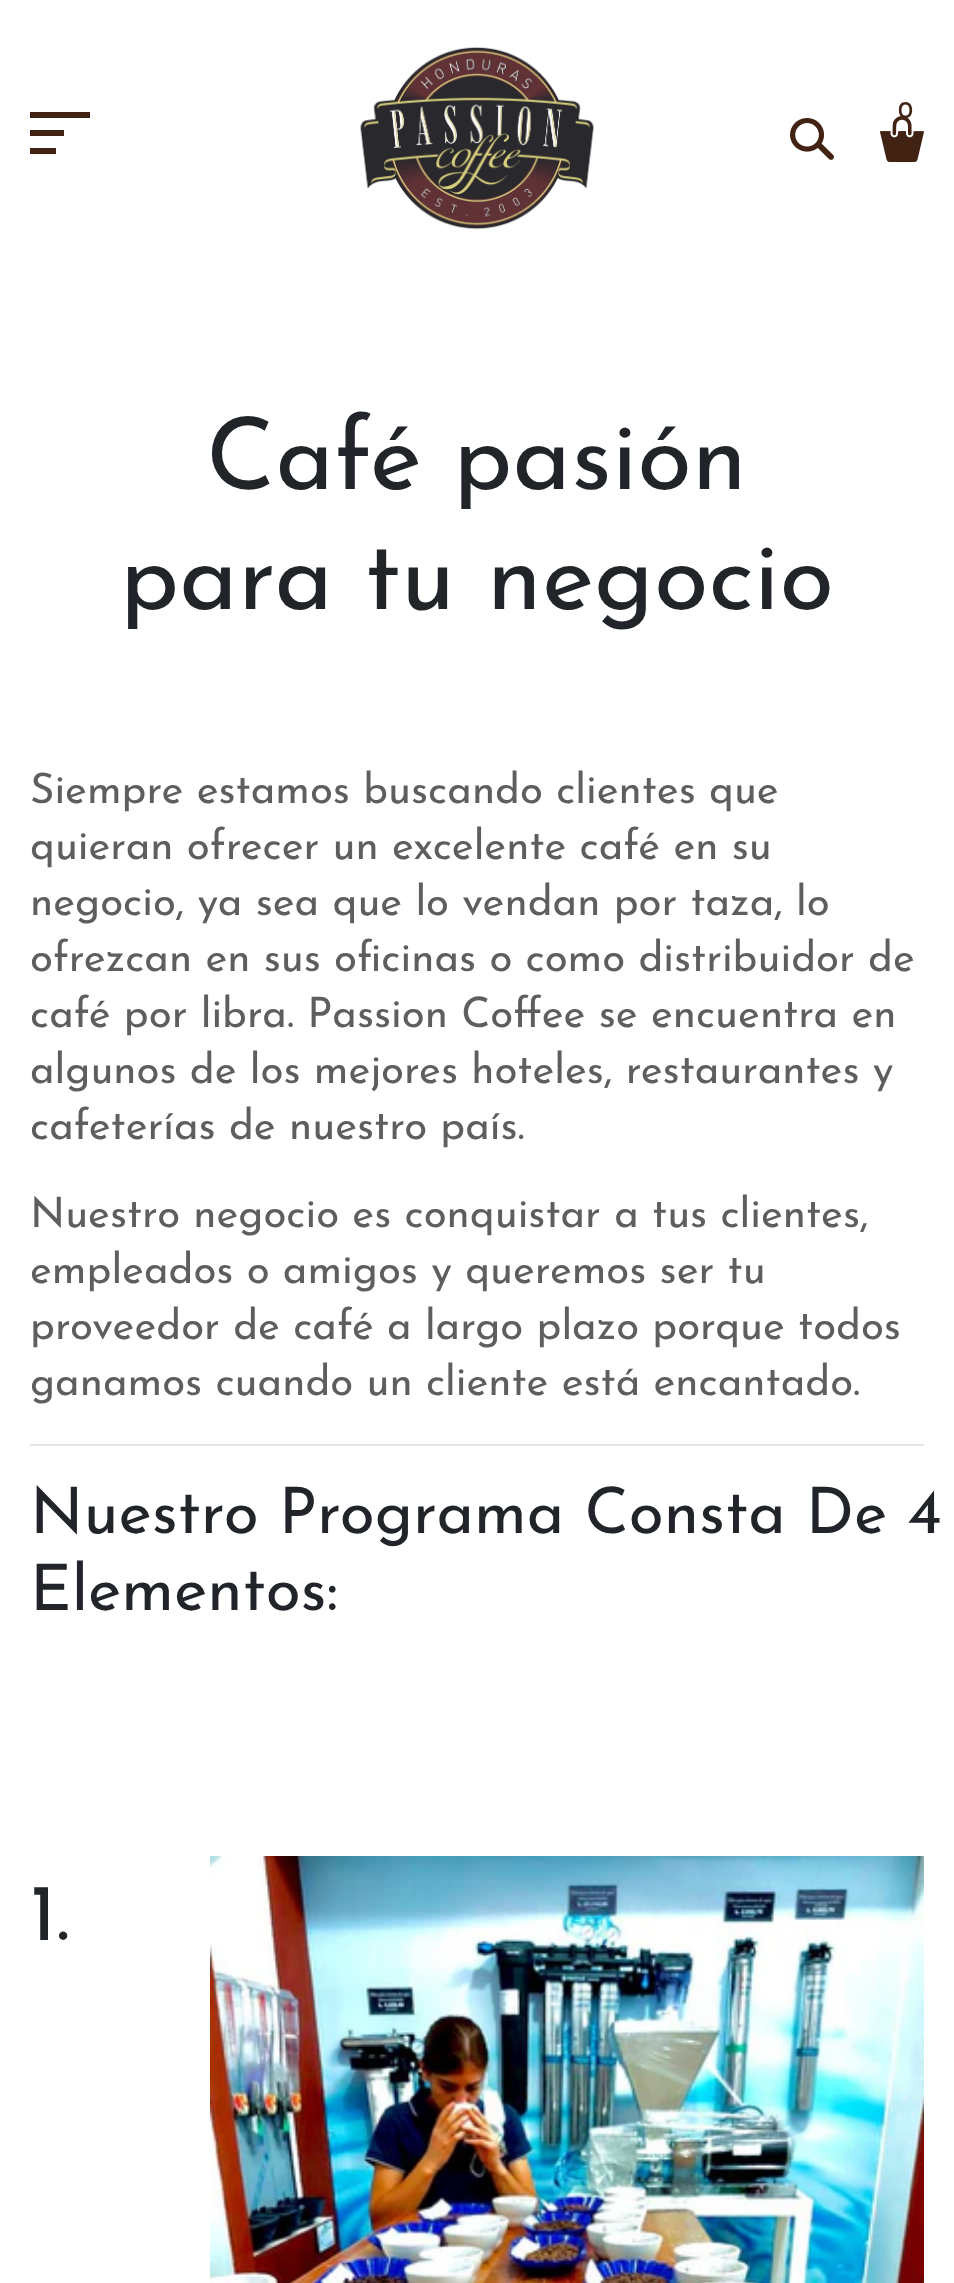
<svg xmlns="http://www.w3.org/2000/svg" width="954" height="2283">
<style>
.a{font:500 24px Josefin Sans;fill:#422213}
.b{font:100px Josefin Sans;fill:#212529}
.c{font:42px Josefin Sans;fill:#5e5e5e}
.d{font:64px Josefin Sans;fill:#212529}
.e{font:80px Josefin Sans;fill:#212529}
</style>
<rect width="100%" height="100%" fill="#fff"/>
<path fill="#422213" d="M30 112h60v6H30z"/>
<path fill="#422213" d="M30 130h34v6H30z"/>
<path fill="#422213" d="M30 148h26v6H30z"/>
<image href="1.png" x="360" y="46" width="234" height="184"/>
<image href="2.png" x="880" y="116" width="44" height="46"/>
<image href="3.png" x="790" y="118" width="44" height="42"/>
<path fill="#e6e6e6" d="M30 1444h894v2H30z"/>
<image href="4.png" x="210" y="1856" width="714" height="427"/>
<text class="a" x="898" y="118">0</text>
<text class="b" x="206" y="489">Café pasión</text>
<text class="b" x="120" y="609">para tu negocio</text>
<text class="c" x="30" y="803">Siempre estamos buscando clientes que</text>
<text class="c" x="30" y="859">quieran ofrecer un excelente café en su</text>
<text class="c" x="30" y="915">negocio, ya sea que lo vendan por taza, lo</text>
<text class="c" x="30" y="971">ofrezcan en sus oficinas o como distribuidor de</text>
<text class="c" x="30" y="1027">café por libra. Passion Coffee se encuentra en</text>
<text class="c" x="30" y="1083">algunos de los mejores hoteles, restaurantes y</text>
<text class="c" x="30" y="1139">cafeterías de nuestro país.</text>
<text class="c" x="30" y="1227">Nuestro negocio es conquistar a tus clientes,</text>
<text class="c" x="30" y="1283">empleados o amigos y queremos ser tu</text>
<text class="c" x="30" y="1339">proveedor de café a largo plazo porque todos</text>
<text class="c" x="30" y="1395">ganamos cuando un cliente está encantado.</text>
<text class="d" x="30" y="1533">Nuestro Programa Consta De 4</text>
<text class="d" x="30" y="1610">Elementos:</text>
<text class="e" x="30" y="1940">1.</text>
</svg>
